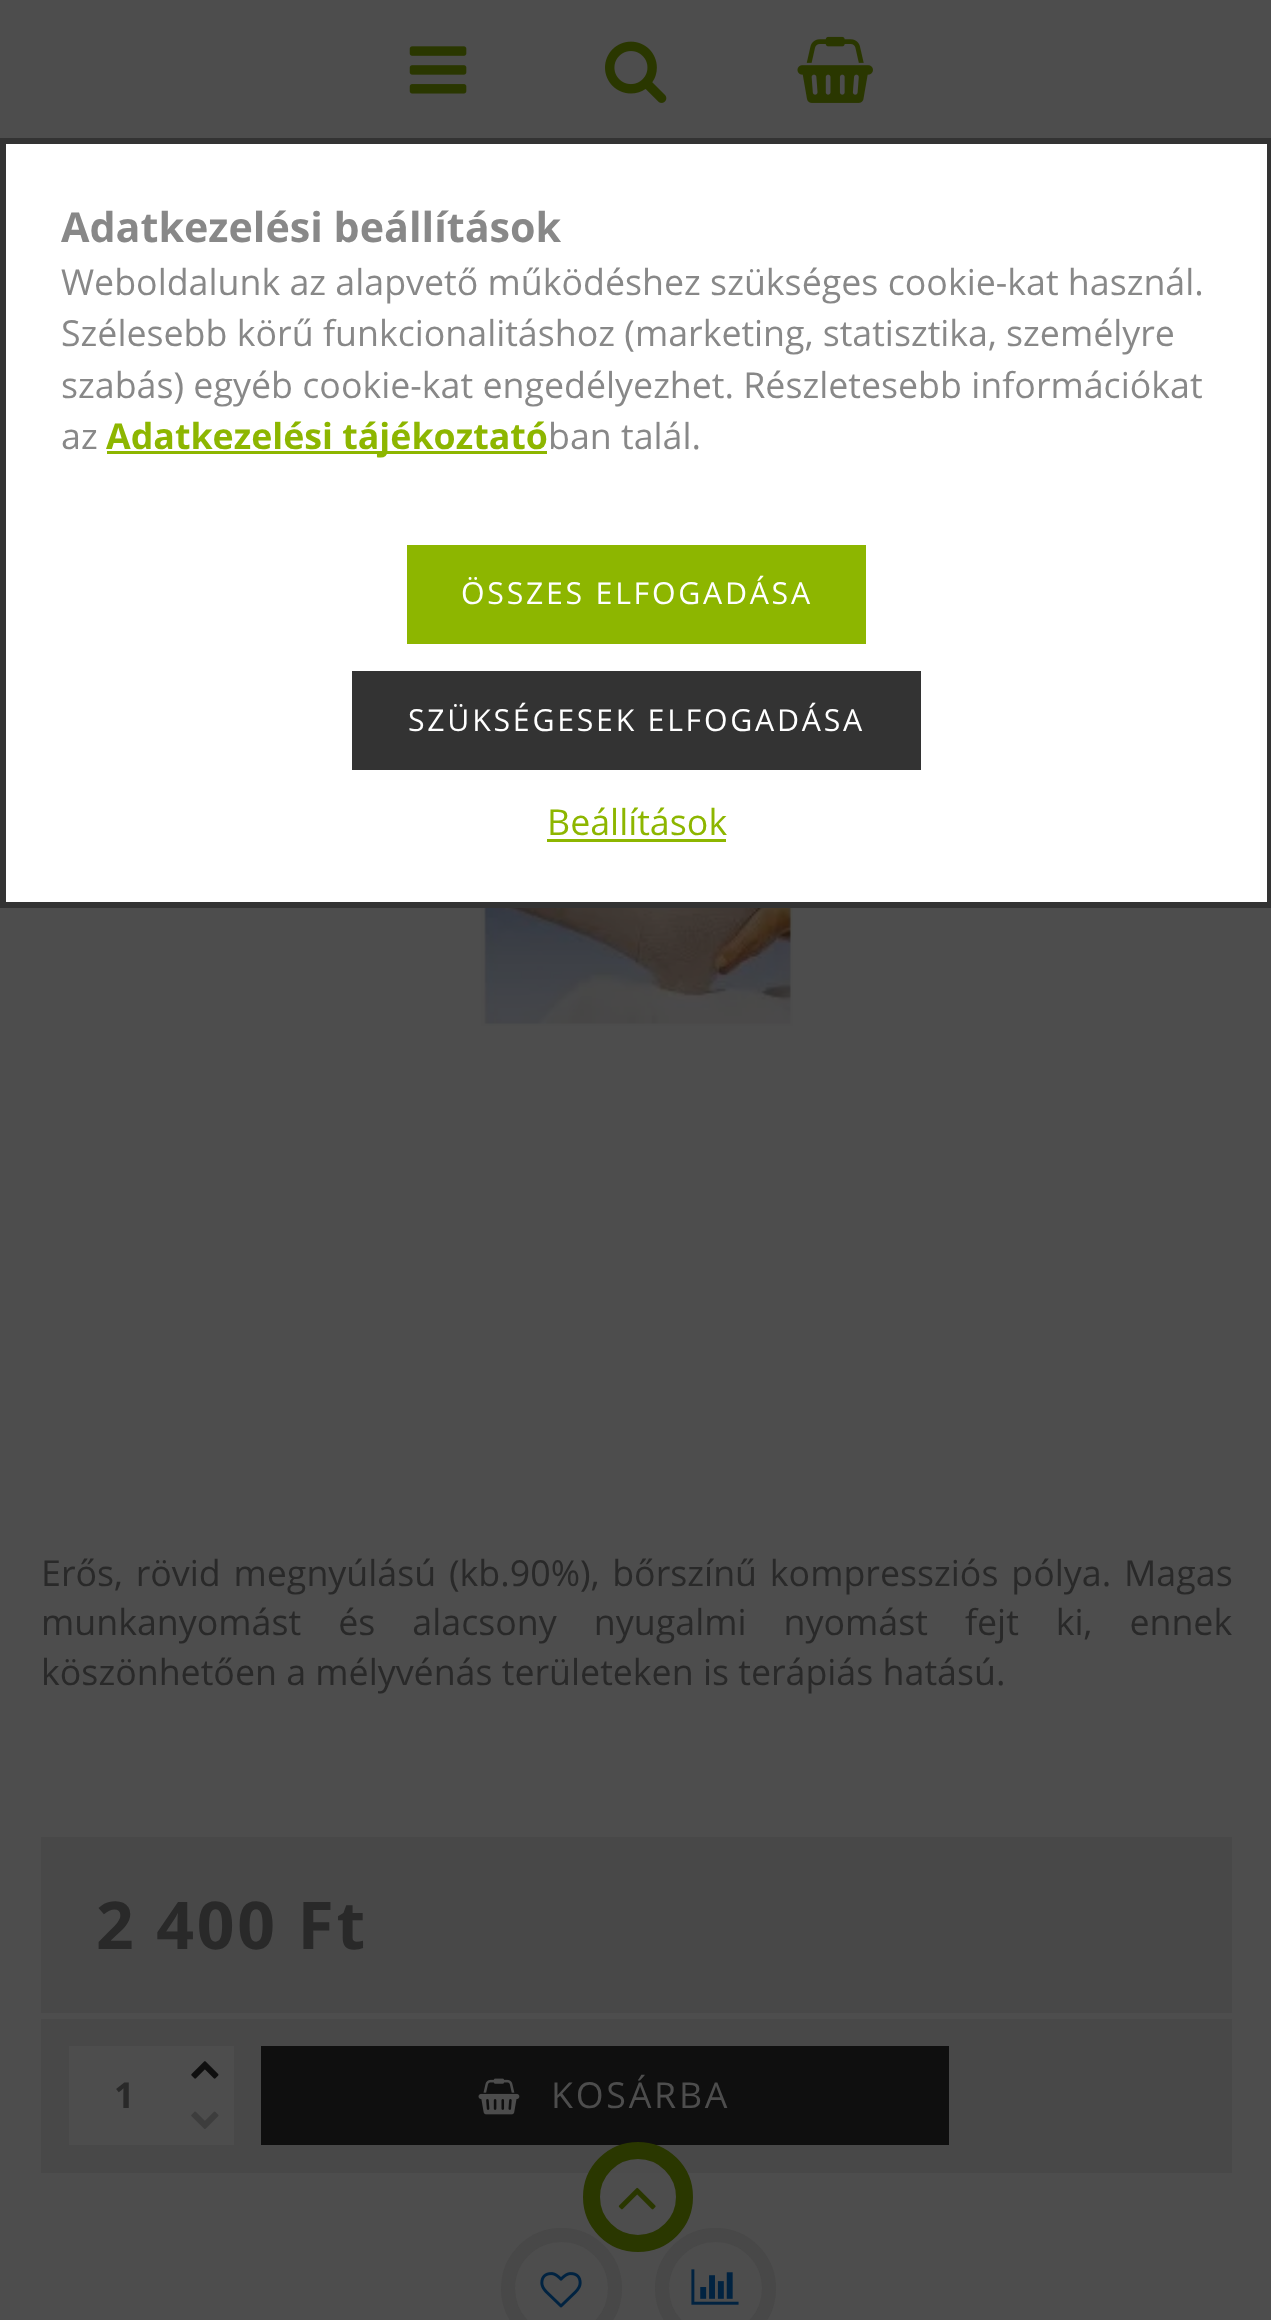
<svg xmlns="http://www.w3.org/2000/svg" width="1271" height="2320">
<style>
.a{font:bold 41.25px Open Sans;fill:#888}
.b{font:35.75px Open Sans;fill:#888}
.c{font:bold 35.75px Open Sans;fill:#8db600}
.d{font:30.25px Open Sans;letter-spacing:2.75px;fill:#fff}
.e{font:35.75px Open Sans;fill:#8db600}
.f{font:35.75px Open Sans;fill:#292929}
.g{font:bold 66px Open Sans;letter-spacing:2.75px;fill:#292929}
.h{font:bold 35.75px Open Sans;fill:#292929}
.i{font:35.75px Open Sans;letter-spacing:2.75px;fill:#4d4d4d}
</style>
<rect width="100%" height="100%" fill="#4d4d4d"/>
<path fill="#fff" stroke="#333" stroke-width="6" d="M3 141h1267v764H3z"/>
<path fill="#8db600" d="M107 451h440v3H107z"/>
<path fill="#8db600" d="M407 545h459v99H407z"/>
<path fill="#333" d="M352 671h569v99H352z"/>
<path fill="#8db600" d="M547 839h179v3H547z"/>
<image href="1.png" x="409" y="46" width="58" height="48"/>
<image href="2.png" x="605" y="41" width="62" height="62"/>
<image href="3.png" x="797" y="36" width="76" height="67"/>
<image href="4.png" x="481" y="908" width="312" height="118"/>
<path fill="#484848" d="M41 1837h1191v176H41z"/>
<path fill="#484848" d="M41 2019h1191v154H41z"/>
<path fill="#4d4d4d" d="M69 2046h110v99H69z"/>
<path fill="#4d4d4d" d="M179 2046h55v99H179z"/>
<image href="5.png" x="191" y="2061" width="28" height="18"/>
<image href="6.png" x="191" y="2111" width="28" height="18"/>
<path fill="#0f0f0f" d="M261 2046h688v99H261z"/>
<image href="7.png" x="478" y="2078" width="42" height="37"/>
<circle fill="none" stroke="#484848" stroke-width="14" cx="561.5" cy="2288.5" r="53.5"/>
<image href="8.png" x="540" y="2272" width="42" height="36"/>
<circle fill="none" stroke="#484848" stroke-width="14" cx="715.5" cy="2288.5" r="53.5"/>
<image href="9.png" x="691" y="2269" width="48" height="36"/>
<circle fill="#4d4d4dcc" stroke="#2a3700" stroke-width="17" cx="638" cy="2197" r="46.5"/>
<image href="10.png" x="618" y="2187" width="38" height="23"/>
<text class="a" x="61" y="242">Adatkezelési beállítások</text>
<text class="b" x="61" y="295">Weboldalunk az alapvető működéshez szükséges cookie-kat használ.</text>
<text class="b" x="61" y="346">Szélesebb körű funkcionalitáshoz (marketing, statisztika, személyre</text>
<text class="b" x="61" y="398">szabás) egyéb cookie-kat engedélyezhet. Részletesebb információkat</text>
<text class="b" x="61" y="449">az</text>
<text class="c" x="106" y="449">Adatkezelési tájékoztató</text>
<text class="b" x="548" y="449">ban talál.</text>
<text class="d" x="461" y="604">ÖSSZES ELFOGADÁSA</text>
<text class="d" x="408" y="731">SZÜKSÉGESEK ELFOGADÁSA</text>
<text class="e" x="547" y="835">Beállítások</text>
<text class="f" x="41" y="1586" word-spacing="3.5">Erős, rövid megnyúlású (kb.90%), bőrszínű kompressziós pólya. Magas</text>
<text class="f" x="41" y="1635" word-spacing="27.75">munkanyomást és alacsony nyugalmi nyomást fejt ki, ennek</text>
<text class="f" x="41" y="1685">köszönhetően a mélyvénás területeken is terápiás hatású.</text>
<text class="g" x="96" y="1949">2 400 Ft</text>
<text class="h" x="114" y="2108">1</text>
<text class="i" x="551" y="2108">KOSÁRBA</text>
</svg>
